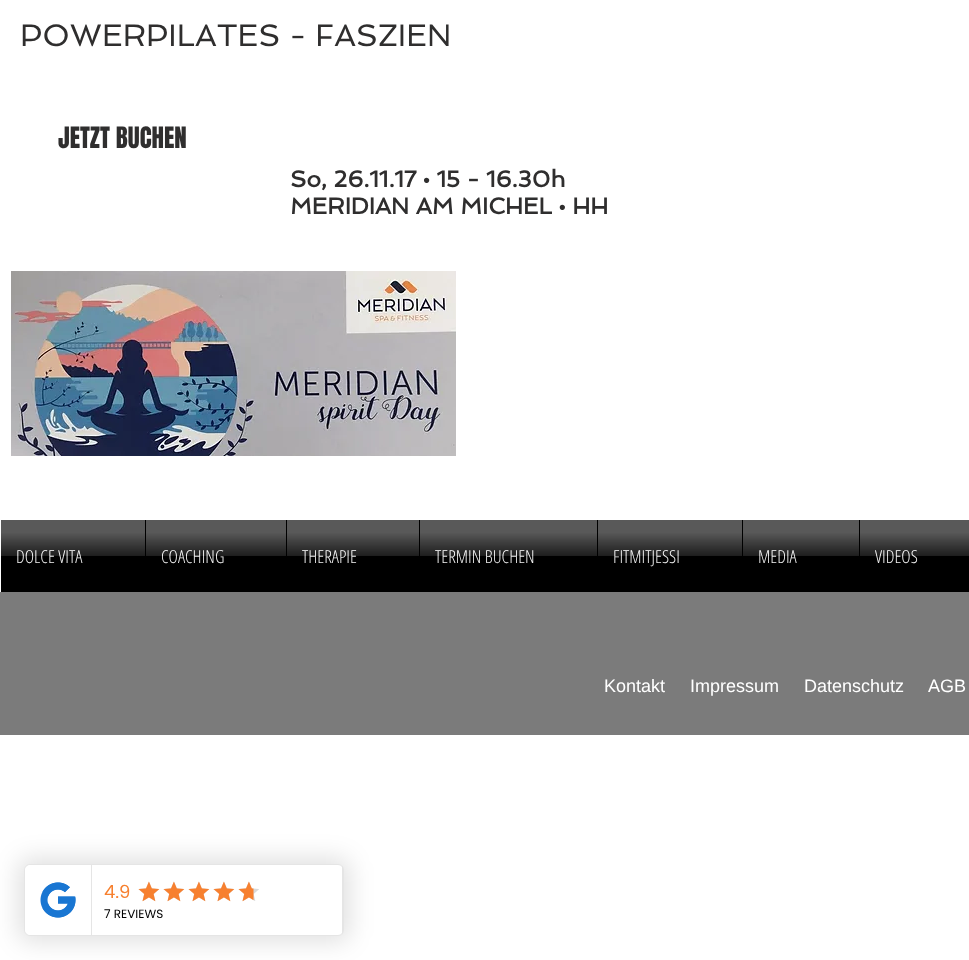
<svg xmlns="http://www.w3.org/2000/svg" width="969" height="960">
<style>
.a{font:31px Spinnaker;fill:#2f2e2e}
.b{font:25px Anton;fill:#2f2e2e}
.c{font:bold 23px Spinnaker;fill:#2f2e2e}
.d{font:300 18px Open Sans Condensed;fill:#fff}
.e{font:18px Liberation Sans;fill:#fff}
.f{font:18px Poppins;fill:#f7802f}
.g{font:12px Poppins;fill:#000}
</style>
<defs>
<clipPath id="clip1"><rect x="24" y="864" width="320" height="72" rx="6"/></clipPath>
</defs>
<rect width="100%" height="100%" fill="#fff"/>
<image href="1.png" x="11" y="271" width="445" height="185"/>
<path fill="#000" d="M1 520h968v72H1z"/>
<path fill="#7b7b7b" d="M0 592h969v143H0z"/>
<rect fill="#0000001f" filter="blur(12px)" x="18" y="858" width="332" height="84" rx="12"/>
<rect fill="#fff" stroke="#e5e5e5" x="24.5" y="864.5" width="319" height="71" rx="5.5"/>
<path fill="#fff" d="M31 865h61v70h-61c-3.5 0-6-2.5-6-6v-58c0-3.5 2.5-6 6-6z"/>
<path fill="#e5e5e5" d="M91 865h1v70H91z"/>
<image href="9.png" x="40" y="882" width="36" height="36"/>
<g clip-path="url(#clip1)">
<path fill="#e5e5e5" d="M342 865h1v70H342z"/>
</g>
<image href="11.png" x="138" y="882" width="21" height="19"/>
<image href="10.png" x="138" y="881" width="22" height="21"/>
<image href="11.png" x="163" y="882" width="21" height="19"/>
<image href="10.png" x="163" y="881" width="22" height="21"/>
<image href="11.png" x="188" y="882" width="21" height="19"/>
<image href="10.png" x="188" y="881" width="22" height="21"/>
<image href="11.png" x="213" y="882" width="21" height="19"/>
<image href="10.png" x="213" y="881" width="22" height="21"/>
<image href="11.png" x="238" y="882" width="21" height="19"/>
<image href="12.png" x="238" y="881" width="16" height="21"/>
<text class="a" x="20" y="46">POWERPILATES - FASZIEN</text>
<text class="b" x="58" y="148">JETZT BUCHEN</text>
<text class="c" x="290" y="187">So, 26.11.17 • 15 - 16.30h</text>
<text class="c" x="290" y="214">MERIDIAN AM MICHEL • HH</text>
<text class="d" x="16" y="563">DOLCE VITA</text>
<image href="2.png" x="1" y="520" width="144" height="43"/>
<text class="d" x="161" y="563">COACHING</text>
<image href="3.png" x="146" y="520" width="140" height="43"/>
<text class="d" x="302" y="563">THERAPIE</text>
<image href="4.png" x="287" y="520" width="132" height="43"/>
<text class="d" x="435" y="563">TERMIN BUCHEN</text>
<image href="5.png" x="420" y="520" width="177" height="43"/>
<text class="d" x="613" y="563">FITMITJESSI</text>
<image href="6.png" x="598" y="520" width="144" height="46"/>
<text class="d" x="758" y="563">MEDIA</text>
<image href="7.png" x="743" y="520" width="116" height="43"/>
<text class="d" x="875" y="563">VIDEOS</text>
<image href="8.png" x="860" y="520" width="109" height="43"/>
<text class="e" x="604" y="692">Kontakt</text>
<text class="e" x="690" y="692">Impressum</text>
<text class="e" x="804" y="692">Datenschutz</text>
<text class="e" x="928" y="692">AGB</text>
<text class="f" x="104" y="898">4.9</text>
<text class="g" x="104" y="918">7 REVIEWS</text>
</svg>
